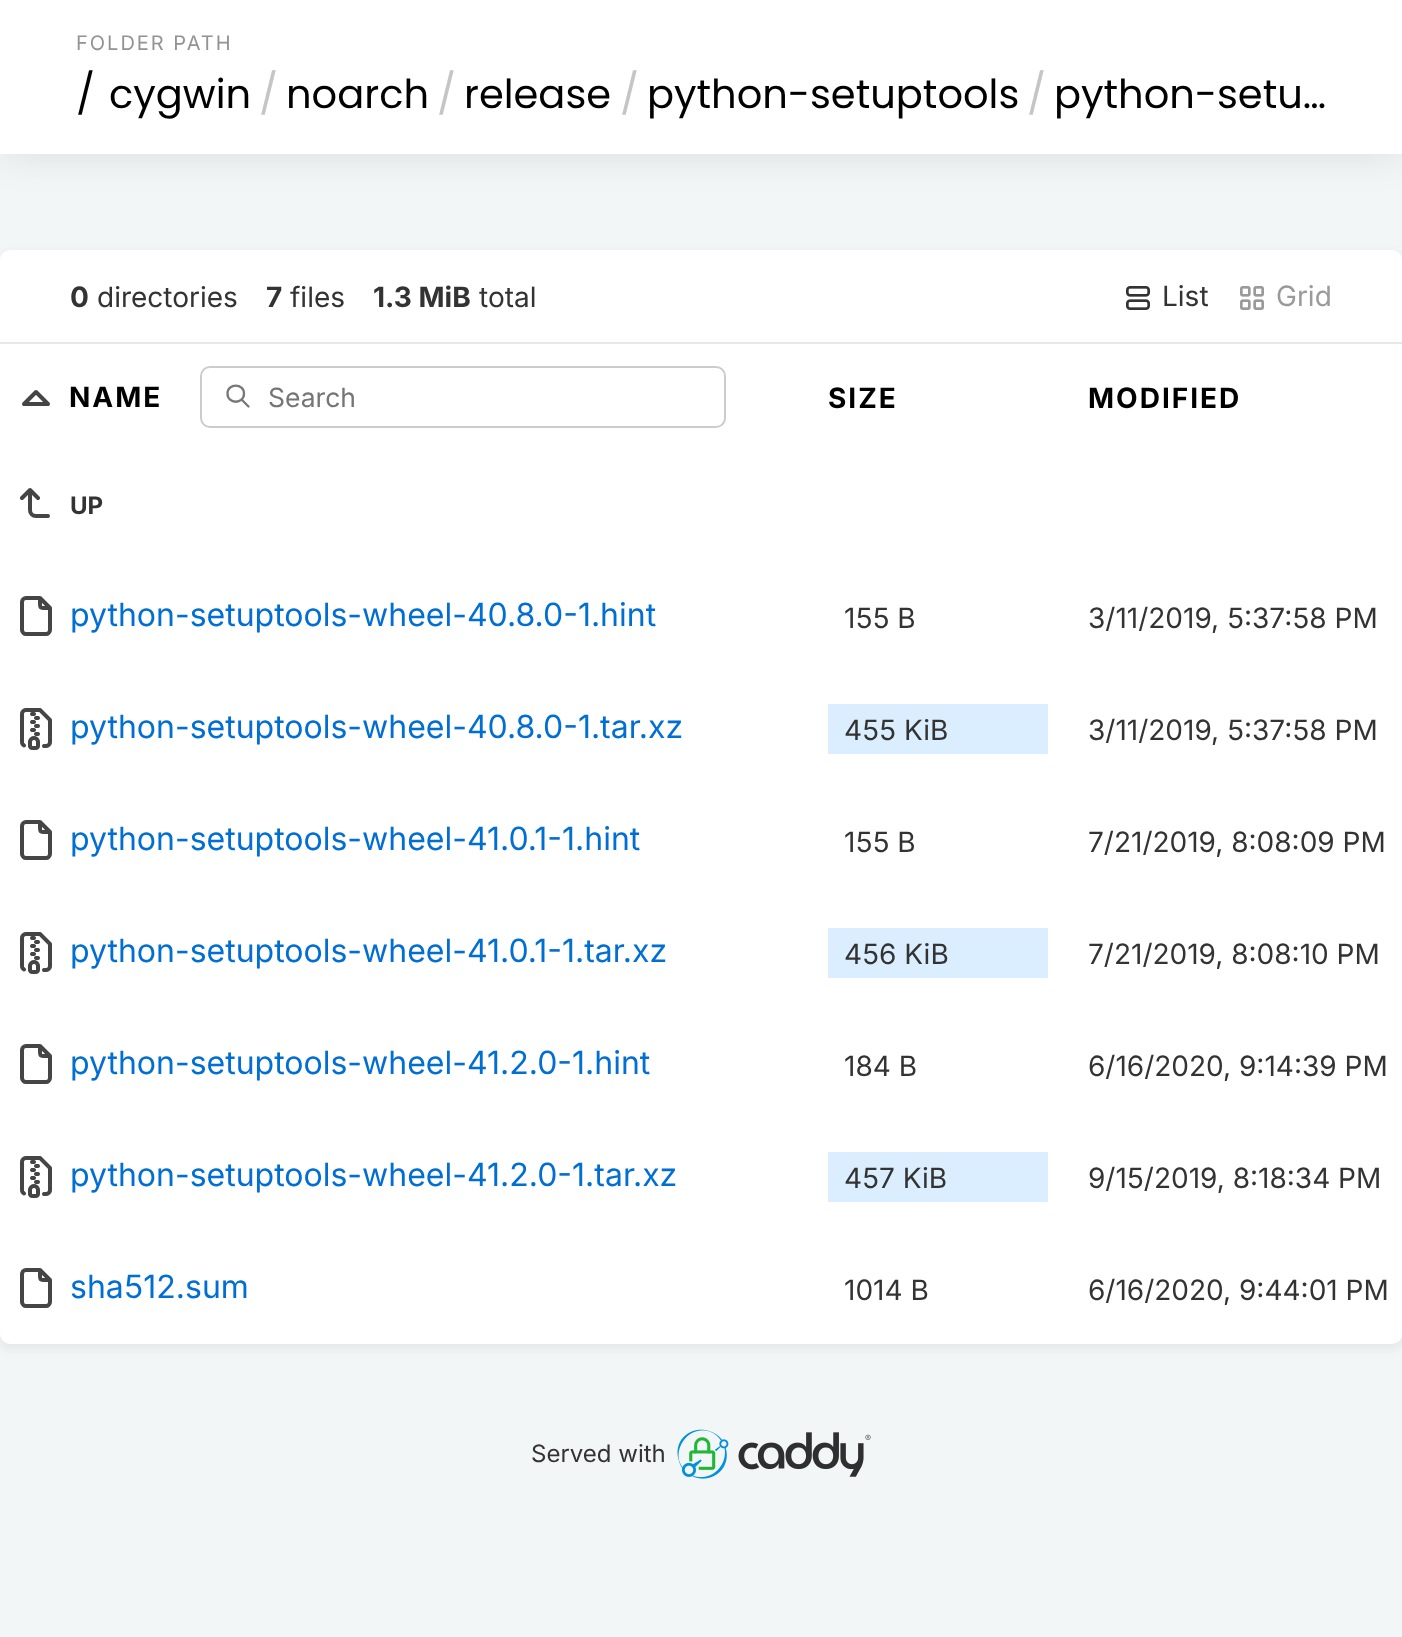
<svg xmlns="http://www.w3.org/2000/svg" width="1402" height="1637">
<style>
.a{font:20px Inter;letter-spacing:2px;fill:#939393}
.b{font:40px Poppins;fill:#000}
.c{font:40px Poppins;fill:#c5c5c5}
.d{font:bold 28px Inter;fill:#333}
.e{font:28px Inter;fill:#333}
.f{font:28px Inter;fill:#9a9a9a}
.g{font:bold 28px Inter;letter-spacing:2px;fill:#000}
.h{font:26.5px Inter;fill:#757575}
.i{font:bold 24px Inter;fill:#333}
.j{font:32px Inter;fill:#006ed3}
.k{font:24px Inter;fill:#333}
</style>
<rect width="100%" height="100%" fill="#f3f6f7"/>
<path fill="#0000001a" filter="blur(20px)" d="M0 0h1402v154H0z"/>
<path fill="#fff" d="M0 0h1402v154H0z"/>
<rect fill="#0000000d" filter="blur(5px)" x="-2" y="252" width="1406" height="1098" rx="12"/>
<rect fill="#fff" y="250" width="1402" height="1094" rx="10"/>
<path fill="#e5e9ea" d="M0 342h1402v2H0z"/>
<image href="1.png" x="1126" y="286" width="24" height="24"/>
<image href="2.png" x="1240" y="286" width="24" height="24"/>
<path fill="none" stroke="#454545" stroke-width="4" stroke-linecap="round" stroke-linejoin="round" d="M48 404l-12-12l-12 12h24"/>
<path fill="none" stroke="#777" stroke-width="2.3" stroke-linecap="round" stroke-linejoin="round" d="M227.5 393.5c0 11 16.5 11 16.5 0c0-10.5-16.5-10.5-16.5 0m21 13l-7-7"/>
<rect fill="none" stroke="#ccc" stroke-width="2" x="201" y="367" width="524" height="60" rx="9"/>
<path fill="none" stroke="#454545" stroke-width="4" stroke-linecap="round" stroke-linejoin="round" d="M48 516h-12c-3.5 0-6-2.5-6-6v-20l-8 8m16 0l-8-8"/>
<path fill="none" stroke="#454545" stroke-width="4" stroke-linecap="round" stroke-linejoin="round" d="M40 598c0 11.5-1.5 10 10 10m-4 26h-20c-2 0-4-2-4-4v-28c0-2 2-4 4-4h14l10 10v22c0 2-2 4-4 4z"/>
<image href="3.png" x="20" y="708" width="32" height="42"/>
<path fill="#dbeeff" d="M828 704h220v50H828z"/>
<path fill="none" stroke="#454545" stroke-width="4" stroke-linecap="round" stroke-linejoin="round" d="M40 822c0 11.5-1.5 10 10 10m-4 26h-20c-2 0-4-2-4-4v-28c0-2 2-4 4-4h14l10 10v22c0 2-2 4-4 4z"/>
<image href="3.png" x="20" y="932" width="32" height="42"/>
<path fill="#dbeeff" d="M828 928h220v50H828z"/>
<path fill="none" stroke="#454545" stroke-width="4" stroke-linecap="round" stroke-linejoin="round" d="M40 1046c0 11.5-1.5 10 10 10m-4 26h-20c-2 0-4-2-4-4v-28c0-2 2-4 4-4h14l10 10v22c0 2-2 4-4 4z"/>
<image href="3.png" x="20" y="1156" width="32" height="42"/>
<path fill="#dbeeff" d="M828 1152h220v50H828z"/>
<path fill="none" stroke="#454545" stroke-width="4" stroke-linecap="round" stroke-linejoin="round" d="M40 1270c0 11.5-1.5 10 10 10m-4 26h-20c-2 0-4-2-4-4v-28c0-2 2-4 4-4h14l10 10v22c0 2-2 4-4 4z"/>
<image href="4.png" x="677" y="1429" width="194" height="50"/>
<text class="a" x="76" y="50">FOLDER PATH</text>
<text class="b" x="76" y="108">/</text>
<text class="b" x="109" y="108">cygwin</text>
<text class="c" x="259" y="108">/</text>
<text class="b" x="286" y="108">noarch</text>
<text class="c" x="437" y="108">/</text>
<text class="b" x="464" y="108">release</text>
<text class="c" x="620" y="108">/</text>
<text class="b" x="647" y="108">python-setuptools</text>
<text class="c" x="1027" y="108">/</text>
<text class="b" x="1054" y="108">python-setu…</text>
<text class="d" x="70" y="307">0</text>
<text class="e" x="97" y="307">directories</text>
<text class="d" x="266" y="307">7</text>
<text class="e" x="290" y="307">files</text>
<text class="d" x="373" y="307">1.3 MiB</text>
<text class="e" x="479" y="307">total</text>
<text class="e" x="1162" y="306">List</text>
<text class="f" x="1276" y="306">Grid</text>
<text class="g" x="69" y="407">NAME</text>
<text class="h" x="268" y="407">Search</text>
<text class="g" x="828" y="408">SIZE</text>
<text class="g" x="1088" y="408">MODIFIED</text>
<text class="i" x="70" y="514">UP</text>
<text class="j" x="70" y="626">python-setuptools-wheel-40.8.0-1.hint</text>
<text class="e" x="844" y="628">155 B</text>
<text class="e" x="1088" y="628">3/11/2019, 5:37:58 PM</text>
<text class="j" x="70" y="738">python-setuptools-wheel-40.8.0-1.tar.xz</text>
<text class="e" x="844" y="740">455 KiB</text>
<text class="e" x="1088" y="740">3/11/2019, 5:37:58 PM</text>
<text class="j" x="70" y="850">python-setuptools-wheel-41.0.1-1.hint</text>
<text class="e" x="844" y="852">155 B</text>
<text class="e" x="1088" y="852">7/21/2019, 8:08:09 PM</text>
<text class="j" x="70" y="962">python-setuptools-wheel-41.0.1-1.tar.xz</text>
<text class="e" x="844" y="964">456 KiB</text>
<text class="e" x="1088" y="964">7/21/2019, 8:08:10 PM</text>
<text class="j" x="70" y="1074">python-setuptools-wheel-41.2.0-1.hint</text>
<text class="e" x="844" y="1076">184 B</text>
<text class="e" x="1088" y="1076">6/16/2020, 9:14:39 PM</text>
<text class="j" x="70" y="1186">python-setuptools-wheel-41.2.0-1.tar.xz</text>
<text class="e" x="844" y="1188">457 KiB</text>
<text class="e" x="1088" y="1188">9/15/2019, 8:18:34 PM</text>
<text class="j" x="70" y="1298">sha512.sum</text>
<text class="e" x="844" y="1300">1014 B</text>
<text class="e" x="1088" y="1300">6/16/2020, 9:44:01 PM</text>
<text class="k" x="531" y="1462">Served with</text>
</svg>
